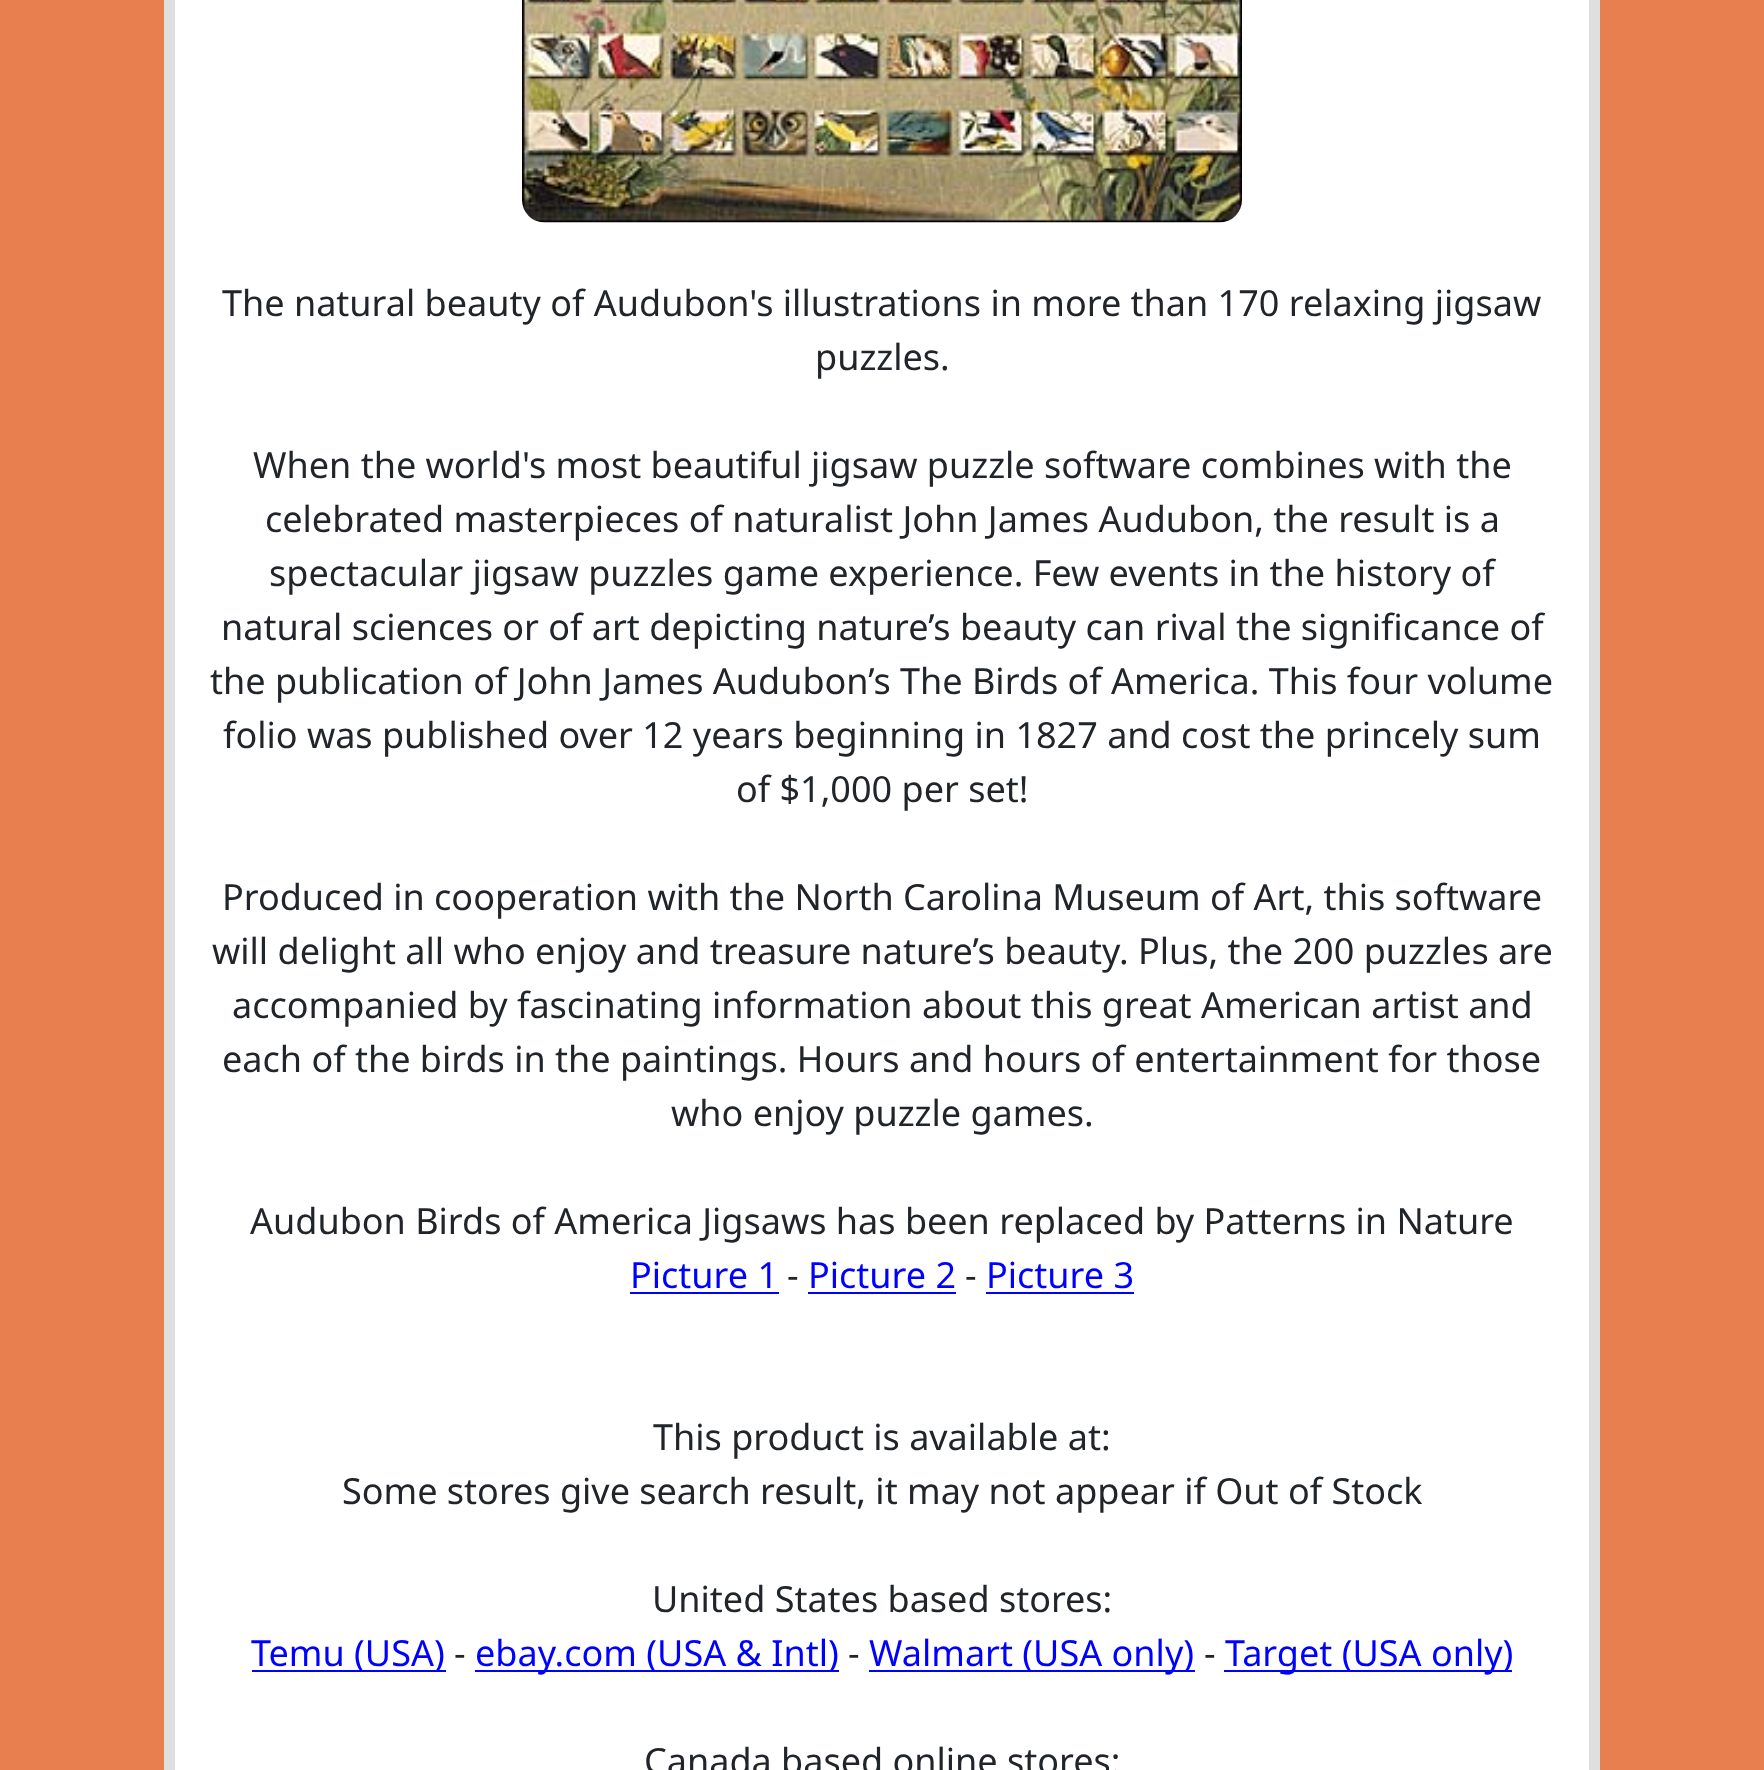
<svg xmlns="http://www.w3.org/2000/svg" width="1764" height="1770">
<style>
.a{font:36px Noto Sans;fill:#212529}
.b{font:36px Noto Sans;fill:#00f}
</style>
<rect width="100%" height="100%" fill="#e77f4f"/>
<path fill="#fff" stroke="#dfdfdf" stroke-width="11" d="M169.5 -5.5h1425v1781H169.5z"/>
<image href="1.png" x="522" y="0" width="720" height="223"/>
<path fill="#00f" d="M630 1292h149v2H630z"/>
<path fill="#00f" d="M808 1292h148v2H808z"/>
<path fill="#00f" d="M986 1292h148v2H986z"/>
<path fill="#00f" d="M252 1670h194v2H252z"/>
<path fill="#00f" d="M475 1670h364v2H475z"/>
<path fill="#00f" d="M869 1670h326v2H869z"/>
<path fill="#00f" d="M1224 1670h288v2H1224z"/>
<text class="a" x="222" y="316">The natural beauty of Audubon's illustrations in more than 170 relaxing jigsaw</text>
<text class="a" x="815" y="370">puzzles.</text>
<text class="a" x="253" y="478">When the world's most beautiful jigsaw puzzle software combines with the</text>
<text class="a" x="265" y="532">celebrated masterpieces of naturalist John James Audubon, the result is a</text>
<text class="a" x="269" y="586">spectacular jigsaw puzzles game experience. Few events in the history of</text>
<text class="a" x="221" y="640">natural sciences or of art depicting nature’s beauty can rival the significance of</text>
<text class="a" x="210" y="694">the publication of John James Audubon’s The Birds of America. This four volume</text>
<text class="a" x="223" y="748">folio was published over 12 years beginning in 1827 and cost the princely sum</text>
<text class="a" x="736" y="802">of $1,000 per set!</text>
<text class="a" x="222" y="910">Produced in cooperation with the North Carolina Museum of Art, this software</text>
<text class="a" x="212" y="964">will delight all who enjoy and treasure nature’s beauty. Plus, the 200 puzzles are</text>
<text class="a" x="232" y="1018">accompanied by fascinating information about this great American artist and</text>
<text class="a" x="222" y="1072">each of the birds in the paintings. Hours and hours of entertainment for those</text>
<text class="a" x="671" y="1126">who enjoy puzzle games.</text>
<text class="a" x="250" y="1234">Audubon Birds of America Jigsaws has been replaced by Patterns in Nature</text>
<text class="b" x="630" y="1288">Picture 1</text>
<text class="a" x="787" y="1288">-</text>
<text class="b" x="808" y="1288">Picture 2</text>
<text class="a" x="965" y="1288">-</text>
<text class="b" x="986" y="1288">Picture 3</text>
<text class="a" x="653" y="1450">This product is available at:</text>
<text class="a" x="342" y="1504">Some stores give search result, it may not appear if Out of Stock</text>
<text class="a" x="652" y="1612">United States based stores:</text>
<text class="b" x="251" y="1666">Temu (USA)</text>
<text class="a" x="454" y="1666">-</text>
<text class="b" x="475" y="1666">ebay.com (USA &amp; Intl)</text>
<text class="a" x="848" y="1666">-</text>
<text class="b" x="869" y="1666">Walmart (USA only)</text>
<text class="a" x="1204" y="1666">-</text>
<text class="b" x="1225" y="1666">Target (USA only)</text>
<text class="a" x="644" y="1774">Canada based online stores:</text>
</svg>
